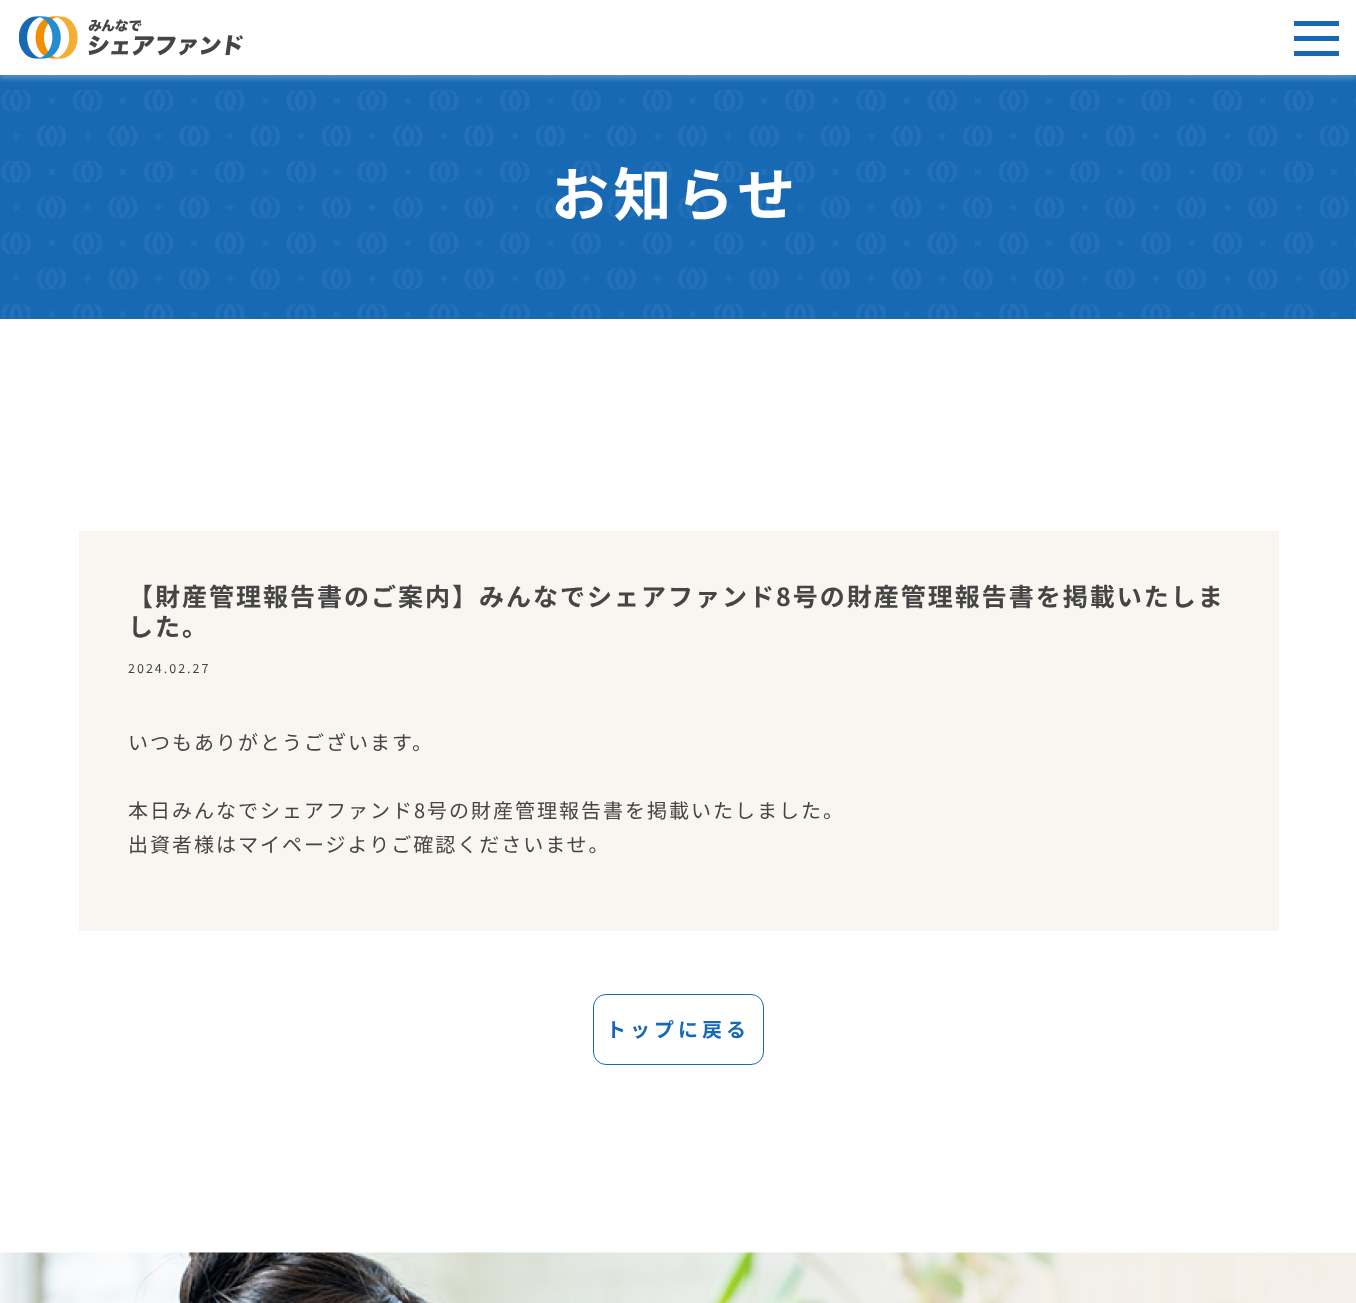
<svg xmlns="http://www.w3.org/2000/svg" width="1356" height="1303">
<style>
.a{font:bold 58px Noto Sans JP;letter-spacing:4.5px;fill:#fff}
.b{font:bold 25px Noto Sans JP;letter-spacing:2px;fill:#454545}
.c{font:12.5px Noto Sans JP;letter-spacing:2px;fill:#454545}
.d{font:20px Noto Sans JP;letter-spacing:2px;fill:#454545}
.e{font:bold 20px Noto Sans JP;letter-spacing:4px;fill:#1769b4}
</style>
<defs>
<clipPath id="clip1"><path d="M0 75h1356v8H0z"/></clipPath>
</defs>
<rect width="100%" height="100%" fill="#fff"/>
<path fill="#1769b4" d="M0 75h1356v244H0z"/>
<image href="2.png" x="1" y="75" width="1355" height="244"/>
<g clip-path="url(#clip1)">
<path fill="#d8e5f24d" filter="blur(2.5px)" d="M0 4h1356v75H0z"/>
</g>
<image href="1.png" x="19" y="16" width="224" height="43"/>
<path fill="#1769b4" d="M1294 21h45v5H1294z"/>
<path fill="#1769b4" d="M1294 36h45v5H1294z"/>
<path fill="#1769b4" d="M1294 51h45v5H1294z"/>
<path fill="#f9f6f2" d="M79 531h1200v400H79z"/>
<rect fill="none" stroke="#1769b4" x="593.5" y="994.5" width="170" height="70" rx="12.5"/>
<image href="3.png" x="0" y="1252" width="1356" height="51"/>
<text class="a" x="551" y="216">お知らせ</text>
<text class="b" x="128" y="606">【財産管理報告書のご案内】みんなでシェアファンド8号の財産管理報告書を掲載いたしま</text>
<text class="b" x="128" y="636">した。</text>
<text class="c" x="128" y="673">2024.02.27</text>
<text class="d" x="128" y="750">いつもありがとうございます。</text>
<text class="d" x="128" y="818">本日みんなでシェアファンド8号の財産管理報告書を掲載いたしました。</text>
<text class="d" x="128" y="852">出資者様はマイページよりご確認くださいませ。</text>
<text class="e" x="606" y="1037">トップに戻る</text>
</svg>
